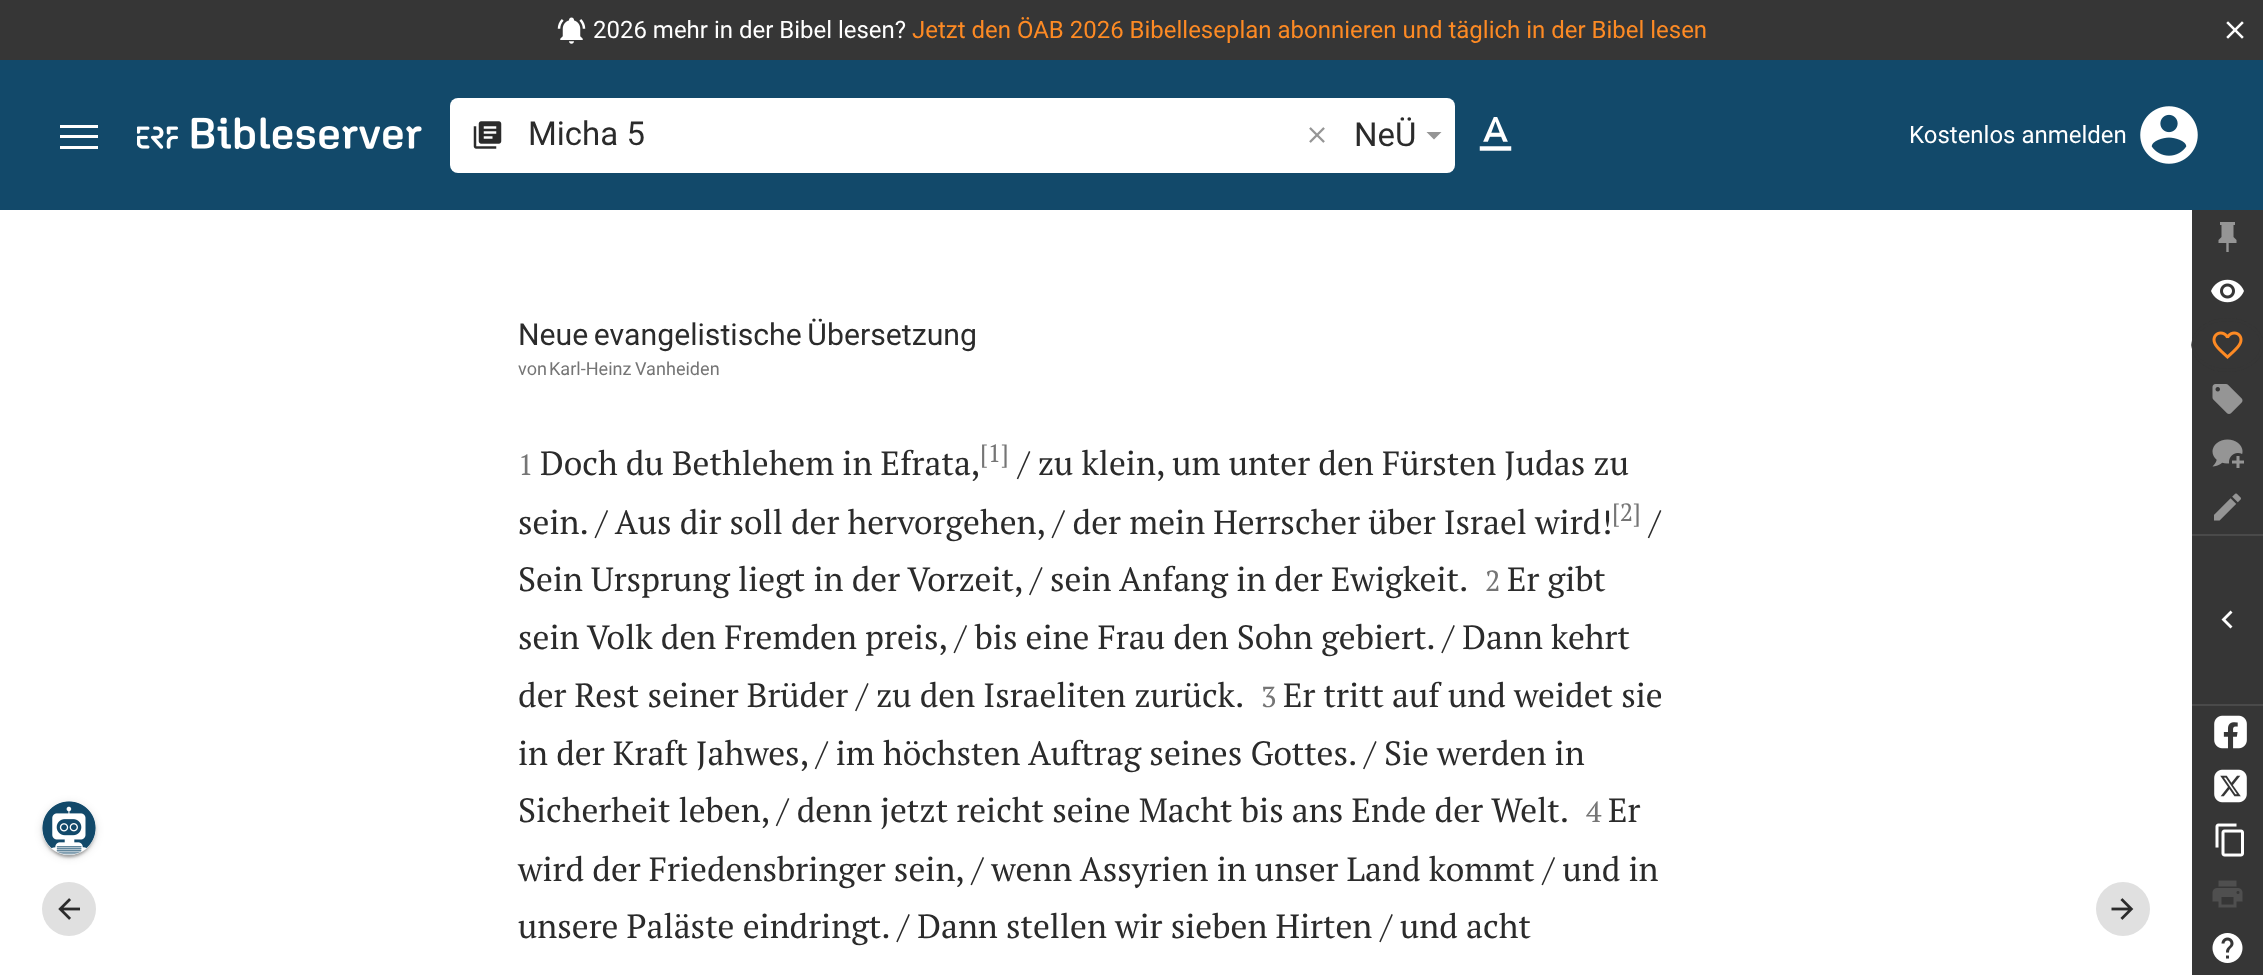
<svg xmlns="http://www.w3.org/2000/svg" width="2263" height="975">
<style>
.a{font:24px Roboto;fill:#fff}
.b{font:24px Roboto;fill:#fd8a24}
.c{font:33px Roboto;fill:#2b2b2b}
.d{font:30.25px Roboto;fill:#2b2b2b}
.e{font:18.1px Roboto;fill:#757575}
.f{font:29px PT Serif;fill:#757575}
.g{font:33.6px PT Serif;fill:#2b2b2b}
.h{font:25px PT Serif;fill:#757575}
</style>
<rect width="100%" height="100%" fill="#fff"/>
<path fill="#363636" d="M0 0h2263v60H0z"/>
<image href="1.png" x="557" y="17" width="29" height="27"/>
<image href="2.png" x="2226" y="21" width="18" height="18"/>
<path fill="#12496a" d="M0 60h2263v150H0z"/>
<path fill="#fff" d="M60 125h38v3H60z"/>
<path fill="#fff" d="M60 135h38v3H60z"/>
<path fill="#fff" d="M60 146h38v3H60z"/>
<image href="3.png" x="137" y="117" width="285" height="33"/>
<rect fill="#fff" x="450" y="98" width="1005" height="75" rx="8"/>
<image href="4.png" x="473" y="121" width="29" height="28"/>
<image href="5.png" x="1309" y="127" width="16" height="16"/>
<path fill="#959595" d="M1426.5 132l7.5 7.5l7.5-7.5z"/>
<image href="6.png" x="1479" y="117" width="33" height="34"/>
<image href="7.png" x="2140" y="106" width="58" height="58"/>
<rect fill="#0000001f" filter="blur(4px)" x="42" y="803" width="54" height="54" rx="27"/>
<rect fill="#00000024" filter="blur(1.5px)" x="42" y="804" width="54" height="54" rx="27"/>
<rect fill="#00000033" filter="blur(1px)" x="45" y="809" width="48" height="48" rx="24"/>
<circle fill="#fff" cx="69" cy="828" r="27"/>
<image href="8.png" x="42" y="801" width="54" height="54"/>
<circle fill="#e0e0e0" cx="69" cy="909" r="27"/>
<image href="9.png" x="58" y="898" width="22" height="22"/>
<circle fill="#e0e0e0" cx="2123" cy="909" r="27"/>
<image href="10.png" x="2111" y="898" width="23" height="22"/>
<path fill="#363636" d="M2192 210h71v765H2192z"/>
<image href="11.png" x="2218" y="222" width="19" height="30"/>
<image href="12.png" x="2211" y="279" width="33" height="24"/>
<ellipse fill="#363636" cx="2227.5" cy="345" rx="36" ry="27"/>
<image href="13.png" x="2212" y="331" width="31" height="28"/>
<path fill="none" stroke="#363636" stroke-width="3" d="M2227.5 319.5c19 0 34.5 11.5 34.5 25.5c0 14-15.5 25.5-34.5 25.5c-19 0-34.5-11.5-34.5-25.5c0-14 15.5-25.5 34.5-25.5z"/>
<image href="14.png" x="2212" y="384" width="31" height="30"/>
<image href="15.png" x="2212" y="439" width="32" height="29"/>
<image href="16.png" x="2214" y="493" width="27" height="28"/>
<path fill="#4a4a4a" d="M2192 534h71v2H2192z"/>
<path fill="#fff" d="M2232.5 626.5l-7-7l7-7l-2-2l-9 9l9 9z"/>
<path fill="#4a4a4a" d="M2192 704h71v2H2192z"/>
<image href="17.png" x="2214" y="715" width="33" height="34"/>
<image href="18.png" x="2214" y="769" width="33" height="34"/>
<image href="19.png" x="2215" y="823" width="29" height="34"/>
<image href="20.png" x="2212" y="880" width="31" height="28"/>
<image href="21.png" x="2212" y="933" width="31" height="30"/>
<text class="a" x="593" y="38">2026 mehr in der Bibel lesen?</text>
<text class="b" x="912" y="38">Jetzt den ÖAB 2026 Bibelleseplan abonnieren und täglich in der Bibel lesen</text>
<text class="c" x="528" y="145">Micha 5</text>
<text class="c" x="1354" y="146">NeÜ</text>
<text class="a" x="1909" y="143">Kostenlos anmelden</text>
<text class="d" x="518" y="345" word-spacing="-2">Neue evangelistische Übersetzung</text>
<text class="e" x="518" y="375">von</text>
<text class="e" x="549" y="375" word-spacing="-1">Karl-Heinz Vanheiden</text>
<text class="f" x="518" y="475">1</text>
<text class="g" x="540" y="475">Doch du Bethlehem in Efrata,</text>
<text class="h" x="980" y="462">[1]</text>
<text class="g" x="1018" y="475">/ zu klein, um unter den Fürsten Judas zu</text>
<text class="g" x="518" y="534">sein. / Aus dir soll der hervorgehen, / der mein Herrscher über Israel wird!</text>
<text class="h" x="1612" y="521">[2]</text>
<text class="g" x="1649" y="534">/</text>
<text class="g" x="518" y="591">Sein Ursprung liegt in der Vorzeit, / sein Anfang in der Ewigkeit.</text>
<text class="f" x="1485" y="591">2</text>
<text class="g" x="1507" y="591">Er gibt</text>
<text class="g" x="518" y="649">sein Volk den Fremden preis, / bis eine Frau den Sohn gebiert. / Dann kehrt</text>
<text class="g" x="518" y="707">der Rest seiner Brüder / zu den Israeliten zurück.</text>
<text class="f" x="1261" y="707">3</text>
<text class="g" x="1283" y="707">Er tritt auf und weidet sie</text>
<text class="g" x="518" y="765">in der Kraft Jahwes, / im höchsten Auftrag seines Gottes. / Sie werden in</text>
<text class="g" x="518" y="822">Sicherheit leben, / denn jetzt reicht seine Macht bis ans Ende der Welt.</text>
<text class="f" x="1586" y="822">4</text>
<text class="g" x="1608" y="822">Er</text>
<text class="g" x="518" y="881">wird der Friedensbringer sein, / wenn Assyrien in unser Land kommt / und in</text>
<text class="g" x="518" y="938">unsere Paläste eindringt. / Dann stellen wir sieben Hirten / und acht</text>
</svg>
